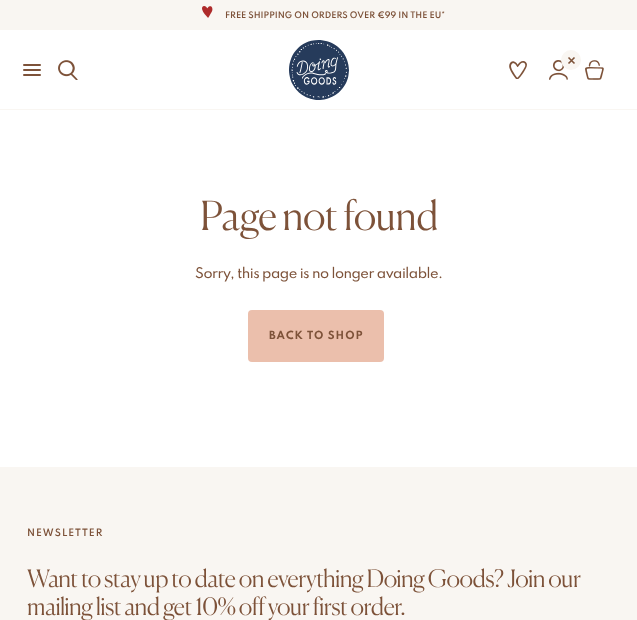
<svg xmlns="http://www.w3.org/2000/svg" width="637" height="620">
<style>
.a{font:600 8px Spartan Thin;fill:#7d5239}
.b{font:300 40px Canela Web;letter-spacing:-0.5px;fill:#7d5239}
.c{font:500 13px Spartan Thin;letter-spacing:-0.5px;fill:#7d5239}
.d{font:bold 10px Spartan Thin;letter-spacing:1px;fill:#7d5239}
.e{font:600 9px Spartan Thin;letter-spacing:1px;fill:#7d5239}
.f{font:300 24px Canela Web;letter-spacing:-0.5px;fill:#7d5239}
</style>
<rect width="100%" height="100%" fill="#fff"/>
<path fill="#f9f6f2" d="M0 0h637v30H0z"/>
<image href="1.png" x="202" y="6" width="11" height="12"/>
<rect fill="#7d5239" x="23" y="64" width="18" height="2" rx="1"/>
<rect fill="#7d5239" x="23" y="69" width="18" height="2" rx="1"/>
<rect fill="#7d5239" x="23" y="74" width="18" height="2" rx="1"/>
<image href="2.png" x="58" y="60" width="20" height="20"/>
<image href="3.png" x="289" y="40" width="60" height="60"/>
<image href="4.png" x="509" y="61" width="18" height="18"/>
<image href="5.png" x="549" y="60" width="19" height="20"/>
<circle fill="#f9f6f2" cx="571" cy="60" r="10"/>
<path fill="none" stroke="#7d5239" stroke-width="1.6" d="M568.5 57.5l6 6m0-6l-6 6"/>
<image href="6.png" x="585" y="60" width="19" height="20"/>
<path fill="#f9f6f2" d="M0 109h637v1H0z"/>
<rect fill="#ebbfac" x="248" y="310" width="136" height="52" rx="4"/>
<path fill="#f9f6f2" d="M0 467h637v153H0z"/>
<text class="a" x="225" y="18">FREE SHIPPING ON ORDERS OVER €99 IN THE EU*</text>
<text class="b" x="200" y="230">Page not found</text>
<text class="c" x="195" y="278">Sorry, this page is no longer available.</text>
<text class="d" x="269" y="339">BACK TO SHOP</text>
<text class="e" x="27" y="536">NEWSLETTER</text>
<text class="f" x="27" y="587">Want to stay up to date on everything Doing Goods? Join our</text>
<text class="f" x="27" y="615">mailing list and get 10% off your first order.</text>
</svg>
